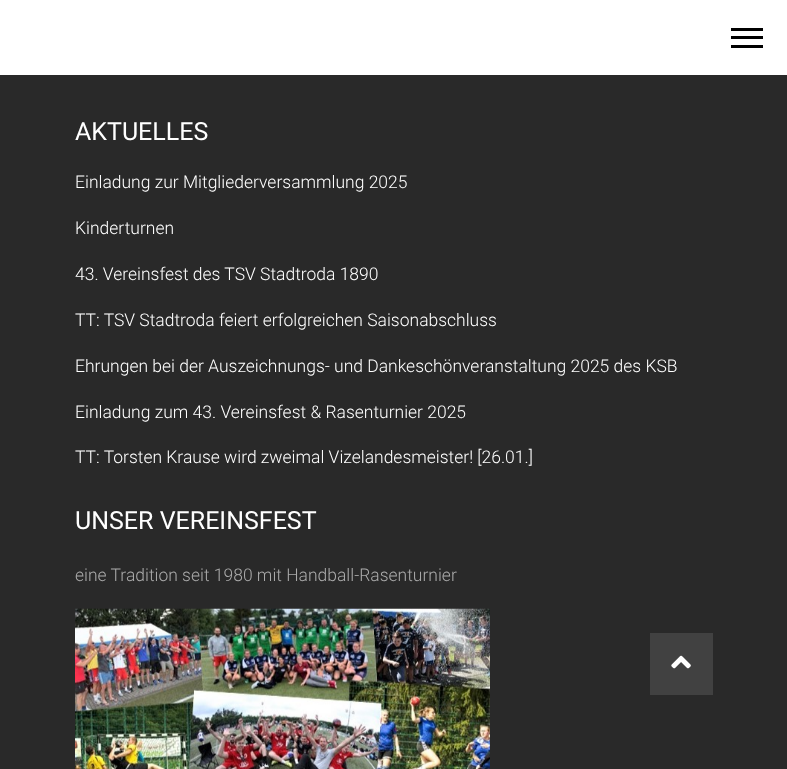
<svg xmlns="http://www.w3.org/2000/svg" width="787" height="769">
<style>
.a{font:25px Roboto;fill:#fff}
.b{font:300 17.5px Roboto;fill:#fff}
.c{font:300 17.5px Roboto;fill:#aaa}
</style>
<rect width="100%" height="100%" fill="#292929"/>
<path fill="#fff" d="M0 0h787v75H0z"/>
<path fill="#000" d="M731 28h32v3H731z"/>
<path fill="#000" d="M731 36h32v3H731z"/>
<path fill="#000" d="M731 45h32v3H731z"/>
<image href="1.png" x="75" y="608" width="415" height="161"/>
<path fill="#414141" d="M650 633h63v62H650z"/>
<image href="2.png" x="671" y="655" width="20" height="14"/>
<text class="a" x="75" y="140">AKTUELLES</text>
<text class="b" x="75" y="188">Einladung zur Mitgliederversammlung 2025</text>
<text class="b" x="75" y="234">Kinderturnen</text>
<text class="b" x="75" y="280">43. Vereinsfest des TSV Stadtroda 1890</text>
<text class="b" x="75" y="326">TT: TSV Stadtroda feiert erfolgreichen Saisonabschluss</text>
<text class="b" x="75" y="372">Ehrungen bei der Auszeichnungs- und Dankeschönveranstaltung 2025 des KSB</text>
<text class="b" x="75" y="418">Einladung zum 43. Vereinsfest &amp; Rasenturnier 2025</text>
<text class="b" x="75" y="463">TT: Torsten Krause wird zweimal Vizelandesmeister! [26.01.]</text>
<text class="a" x="75" y="529">UNSER VEREINSFEST</text>
<text class="c" x="75" y="581">eine Tradition seit 1980 mit Handball-Rasenturnier</text>
</svg>
